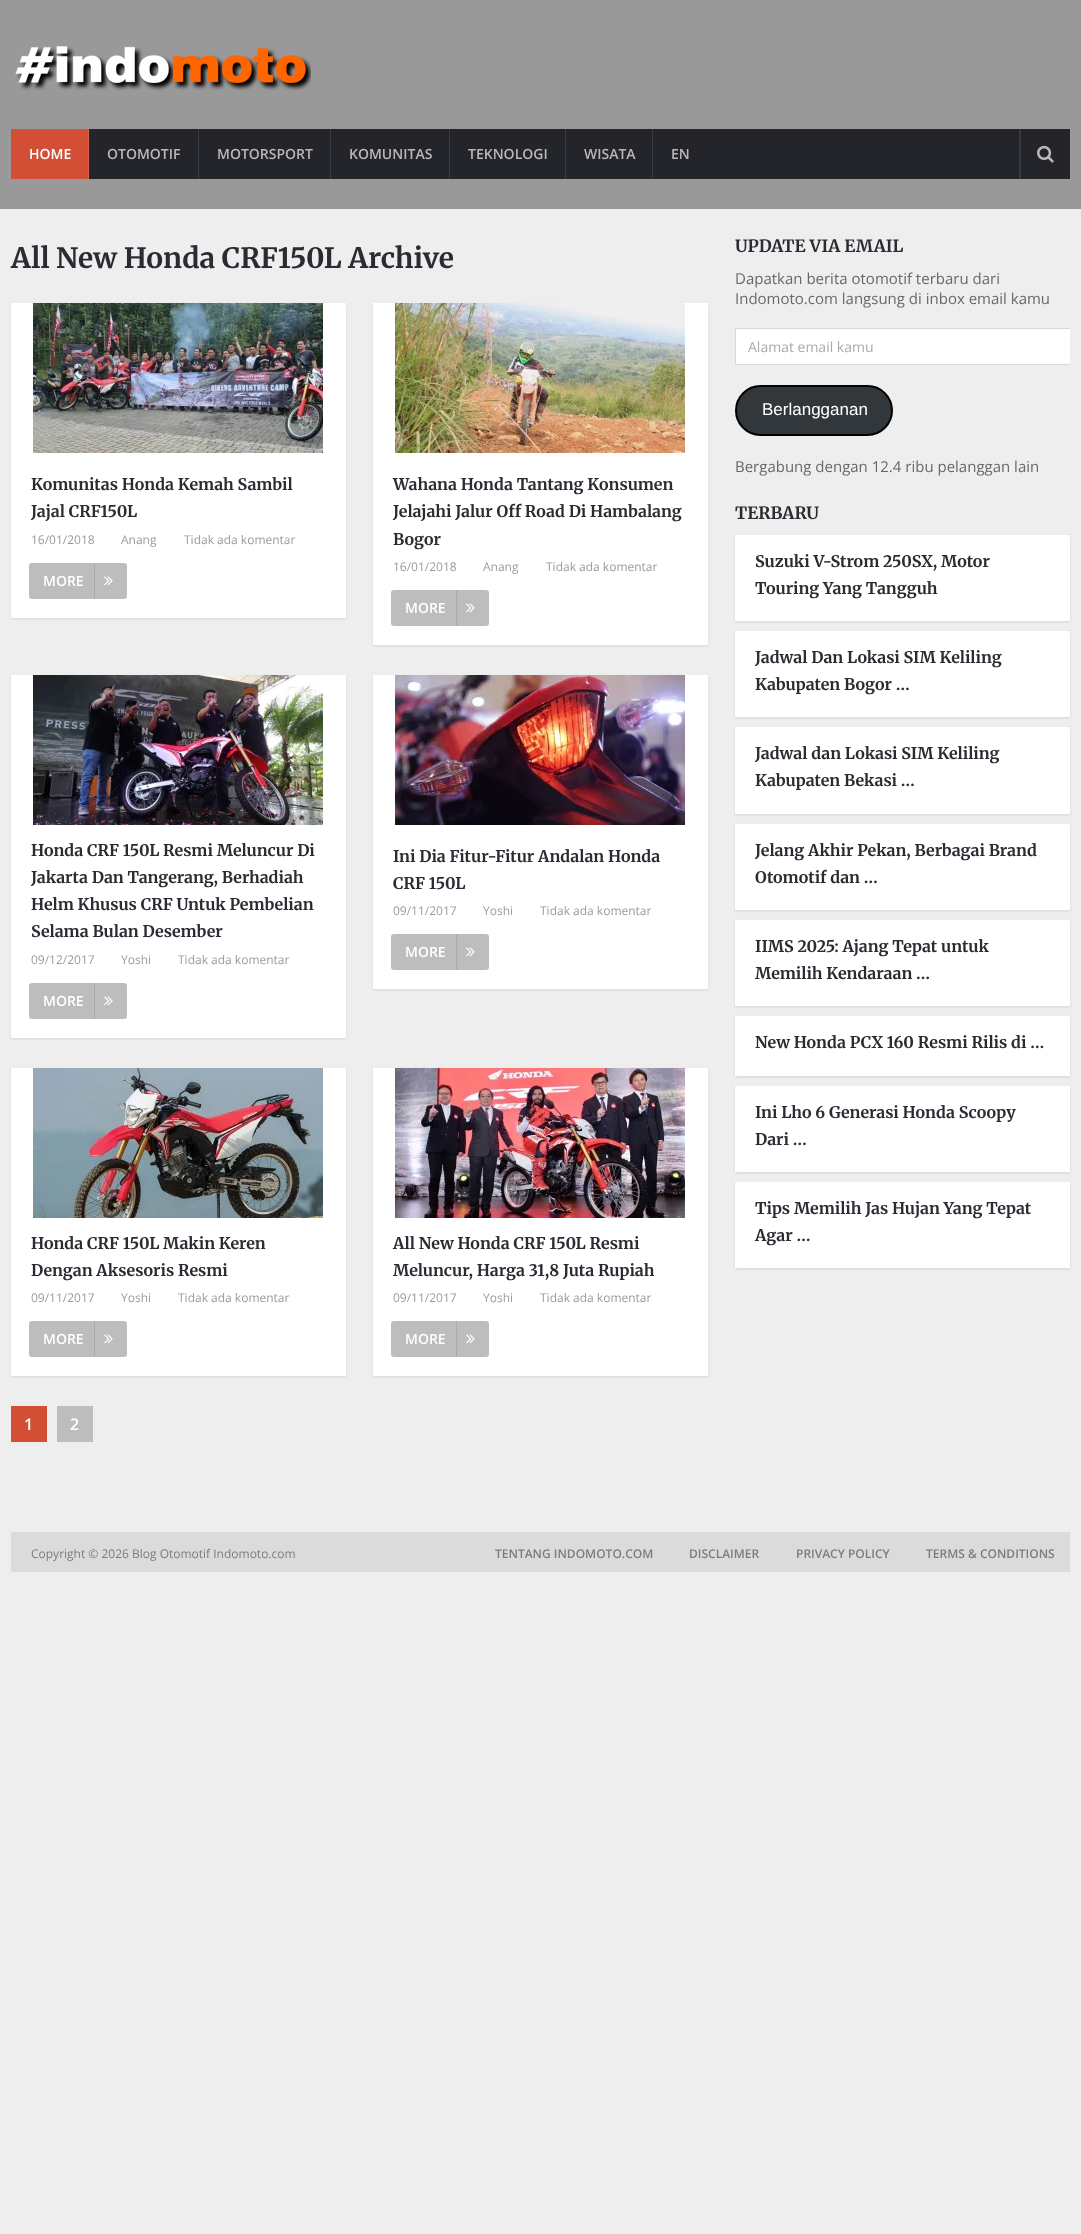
<svg xmlns="http://www.w3.org/2000/svg" width="1081" height="2234">
<style>
.a{font:600 14px Open Sans;fill:#fff}
.b{font:600 14px Open Sans;fill:#b8b8ba}
.c{font:300 28px Merriweather;fill:#2b2c33}
.d{font:300 16px Merriweather;fill:#2b2c33}
.e{font:12px Open Sans;fill:#9b9b9b}
.f{font:600 16px Open Sans;fill:#fff}
.g{font:300 17px Merriweather;fill:#2b2c33}
.h{font:15px Open Sans;fill:#686868}
.i{font:14px Open Sans;fill:#aaa}
.j{font:17px Liberation Sans;fill:#fff}
.k{font:12px Open Sans;fill:#7c7c7c}
.l{font:600 12px Open Sans;fill:#7c7c7c}
</style>
<defs>
<clipPath id="clip1"><path d="M735 237h335v239H735z"/></clipPath>
</defs>
<rect width="100%" height="100%" fill="#eee"/>
<path fill="#999" d="M0 0h1081v209H0z"/>
<image href="1.png" x="15" y="46" width="296" height="45"/>
<path fill="#24252b" d="M89 129h981v50H89z"/>
<path fill="#d24f36" d="M11 129h77v50H11z"/>
<path fill="#d7614a" d="M88 129h1v50H88z"/>
<path fill="#3a3b40" d="M198 129h1v50H198z"/>
<path fill="#3a3b40" d="M330 129h1v50H330z"/>
<path fill="#3a3b40" d="M449 129h1v50H449z"/>
<path fill="#3a3b40" d="M565 129h1v50H565z"/>
<path fill="#3a3b40" d="M652 129h1v50H652z"/>
<path fill="#3a3b40" d="M1019 129h1v50H1019z"/>
<path fill="#33343c" d="M1020 129h1v50H1020z"/>
<image href="2.png" x="1037" y="145" width="17" height="18"/>
<path fill="#0000001a" filter="blur(1px)" d="M11 304h335v315H11z"/>
<path fill="#fff" d="M11 303h335v315H11z"/>
<image href="3.png" x="33" y="303" width="290" height="150"/>
<rect fill="#bebdbd" x="29" y="563" width="98" height="36" rx="3"/>
<path fill="#abaaaa" d="M94 563h1v36H94z"/>
<image href="4.png" x="104" y="576" width="9" height="10"/>
<path fill="#0000001a" filter="blur(1px)" d="M373 304h335v342H373z"/>
<path fill="#fff" d="M373 303h335v342H373z"/>
<image href="5.png" x="395" y="303" width="290" height="150"/>
<rect fill="#bebdbd" x="391" y="590" width="98" height="36" rx="3"/>
<path fill="#abaaaa" d="M456 590h1v36H456z"/>
<image href="4.png" x="466" y="603" width="9" height="10"/>
<path fill="#0000001a" filter="blur(1px)" d="M11 676h335v363H11z"/>
<path fill="#fff" d="M11 675h335v363H11z"/>
<image href="6.png" x="33" y="675" width="290" height="150"/>
<rect fill="#bebdbd" x="29" y="983" width="98" height="36" rx="3"/>
<path fill="#abaaaa" d="M94 983h1v36H94z"/>
<image href="4.png" x="104" y="996" width="9" height="10"/>
<path fill="#0000001a" filter="blur(1px)" d="M373 676h335v314H373z"/>
<path fill="#fff" d="M373 675h335v314H373z"/>
<image href="7.png" x="395" y="675" width="290" height="150"/>
<rect fill="#bebdbd" x="391" y="934" width="98" height="36" rx="3"/>
<path fill="#abaaaa" d="M456 934h1v36H456z"/>
<image href="4.png" x="466" y="947" width="9" height="10"/>
<path fill="#0000001a" filter="blur(1px)" d="M11 1069h335v308H11z"/>
<path fill="#fff" d="M11 1068h335v308H11z"/>
<image href="8.png" x="33" y="1068" width="290" height="150"/>
<rect fill="#bebdbd" x="29" y="1321" width="98" height="36" rx="3"/>
<path fill="#abaaaa" d="M94 1321h1v36H94z"/>
<image href="4.png" x="104" y="1334" width="9" height="10"/>
<path fill="#0000001a" filter="blur(1px)" d="M373 1069h335v308H373z"/>
<path fill="#fff" d="M373 1068h335v308H373z"/>
<image href="9.png" x="395" y="1068" width="290" height="150"/>
<rect fill="#bebdbd" x="391" y="1321" width="98" height="36" rx="3"/>
<path fill="#abaaaa" d="M456 1321h1v36H456z"/>
<image href="4.png" x="466" y="1334" width="9" height="10"/>
<path fill="#d24f36" d="M11 1406h36v36H11z"/>
<path fill="#bebdbd" d="M57 1406h36v36H57z"/>
<path fill="#fff" d="M736 329h334v35H736z"/>
<g clip-path="url(#clip1)">
<path fill="none" stroke="#d8d8d8" d="M735.5 328.5h343v36H735.5z"/>
</g>
<rect fill="#32373c" stroke="#000" stroke-width="2" x="736" y="386" width="156" height="49" rx="24.5"/>
<path fill="#0000001a" filter="blur(1px)" d="M735 536h335v86H735z"/>
<path fill="#fff" d="M735 535h335v86H735z"/>
<path fill="#0000001a" filter="blur(1px)" d="M735 632h335v86H735z"/>
<path fill="#fff" d="M735 631h335v86H735z"/>
<path fill="#0000001a" filter="blur(1px)" d="M735 728h335v87H735z"/>
<path fill="#fff" d="M735 727h335v87H735z"/>
<path fill="#0000001a" filter="blur(1px)" d="M735 825h335v86H735z"/>
<path fill="#fff" d="M735 824h335v86H735z"/>
<path fill="#0000001a" filter="blur(1px)" d="M735 921h335v86H735z"/>
<path fill="#fff" d="M735 920h335v86H735z"/>
<path fill="#0000001a" filter="blur(1px)" d="M735 1017h335v60H735z"/>
<path fill="#fff" d="M735 1016h335v60H735z"/>
<path fill="#0000001a" filter="blur(1px)" d="M735 1087h335v86H735z"/>
<path fill="#fff" d="M735 1086h335v86H735z"/>
<path fill="#0000001a" filter="blur(1px)" d="M735 1183h335v86H735z"/>
<path fill="#fff" d="M735 1182h335v86H735z"/>
<path fill="#dbdbdb" d="M11 1532h1059v40H11z"/>
<text class="a" x="29" y="159">HOME</text>
<text class="b" x="107" y="159">OTOMOTIF</text>
<text class="b" x="217" y="159">MOTORSPORT</text>
<text class="b" x="349" y="159">KOMUNITAS</text>
<text class="b" x="468" y="159">TEKNOLOGI</text>
<text class="b" x="584" y="159">WISATA</text>
<text class="b" x="671" y="159">EN</text>
<text class="c" x="11" y="268">All New Honda CRF150L Archive</text>
<text class="d" x="31" y="490">Komunitas Honda Kemah Sambil</text>
<text class="d" x="31" y="517">Jajal CRF150L</text>
<text class="e" x="31" y="544">16/01/2018</text>
<text class="e" x="121" y="544">Anang</text>
<text class="e" x="184" y="544">Tidak ada komentar</text>
<text class="a" x="43" y="586">MORE</text>
<text class="d" x="393" y="490">Wahana Honda Tantang Konsumen</text>
<text class="d" x="393" y="517">Jelajahi Jalur Off Road Di Hambalang</text>
<text class="d" x="393" y="545">Bogor</text>
<text class="e" x="393" y="571">16/01/2018</text>
<text class="e" x="483" y="571">Anang</text>
<text class="e" x="546" y="571">Tidak ada komentar</text>
<text class="a" x="405" y="613">MORE</text>
<text class="d" x="31" y="856">Honda CRF 150L Resmi Meluncur Di</text>
<text class="d" x="31" y="883">Jakarta Dan Tangerang, Berhadiah</text>
<text class="d" x="31" y="910">Helm Khusus CRF Untuk Pembelian</text>
<text class="d" x="31" y="937">Selama Bulan Desember</text>
<text class="e" x="31" y="964">09/12/2017</text>
<text class="e" x="121" y="964">Yoshi</text>
<text class="e" x="178" y="964">Tidak ada komentar</text>
<text class="a" x="43" y="1006">MORE</text>
<text class="d" x="393" y="862">Ini Dia Fitur-Fitur Andalan Honda</text>
<text class="d" x="393" y="889">CRF 150L</text>
<text class="e" x="393" y="915">09/11/2017</text>
<text class="e" x="483" y="915">Yoshi</text>
<text class="e" x="540" y="915">Tidak ada komentar</text>
<text class="a" x="405" y="957">MORE</text>
<text class="d" x="31" y="1249">Honda CRF 150L Makin Keren</text>
<text class="d" x="31" y="1276">Dengan Aksesoris Resmi</text>
<text class="e" x="31" y="1302">09/11/2017</text>
<text class="e" x="121" y="1302">Yoshi</text>
<text class="e" x="178" y="1302">Tidak ada komentar</text>
<text class="a" x="43" y="1344">MORE</text>
<text class="d" x="393" y="1249">All New Honda CRF 150L Resmi</text>
<text class="d" x="393" y="1276">Meluncur, Harga 31,8 Juta Rupiah</text>
<text class="e" x="393" y="1302">09/11/2017</text>
<text class="e" x="483" y="1302">Yoshi</text>
<text class="e" x="540" y="1302">Tidak ada komentar</text>
<text class="a" x="405" y="1344">MORE</text>
<text class="f" x="24" y="1430">1</text>
<text class="f" x="70" y="1430">2</text>
<text class="g" x="735" y="252">UPDATE VIA EMAIL</text>
<text class="h" x="735" y="284">Dapatkan berita otomotif terbaru dari</text>
<text class="h" x="735" y="304">Indomoto.com langsung di inbox email kamu</text>
<text class="i" x="748" y="352">Alamat email kamu</text>
<text class="j" x="762" y="415">Berlangganan</text>
<text class="h" x="735" y="472">Bergabung dengan 12.4 ribu pelanggan lain</text>
<text class="g" x="735" y="519">TERBARU</text>
<text class="d" x="755" y="567">Suzuki V-Strom 250SX, Motor</text>
<text class="d" x="755" y="594">Touring Yang Tangguh</text>
<text class="d" x="755" y="663">Jadwal Dan Lokasi SIM Keliling</text>
<text class="d" x="755" y="690">Kabupaten Bogor …</text>
<text class="d" x="755" y="759">Jadwal dan Lokasi SIM Keliling</text>
<text class="d" x="755" y="786">Kabupaten Bekasi …</text>
<text class="d" x="755" y="856">Jelang Akhir Pekan, Berbagai Brand</text>
<text class="d" x="755" y="883">Otomotif dan …</text>
<text class="d" x="755" y="952">IIMS 2025: Ajang Tepat untuk</text>
<text class="d" x="755" y="979">Memilih Kendaraan …</text>
<text class="d" x="755" y="1048">New Honda PCX 160 Resmi Rilis di …</text>
<text class="d" x="755" y="1118">Ini Lho 6 Generasi Honda Scoopy</text>
<text class="d" x="755" y="1145">Dari …</text>
<text class="d" x="755" y="1214">Tips Memilih Jas Hujan Yang Tepat</text>
<text class="d" x="755" y="1241">Agar …</text>
<text class="k" x="31" y="1558">Copyright © 2026 Blog Otomotif Indomoto.com</text>
<text class="l" x="495" y="1558">TENTANG INDOMOTO.COM</text>
<text class="l" x="689" y="1558">DISCLAIMER</text>
<text class="l" x="796" y="1558">PRIVACY POLICY</text>
<text class="l" x="926" y="1558">TERMS &amp; CONDITIONS</text>
</svg>
